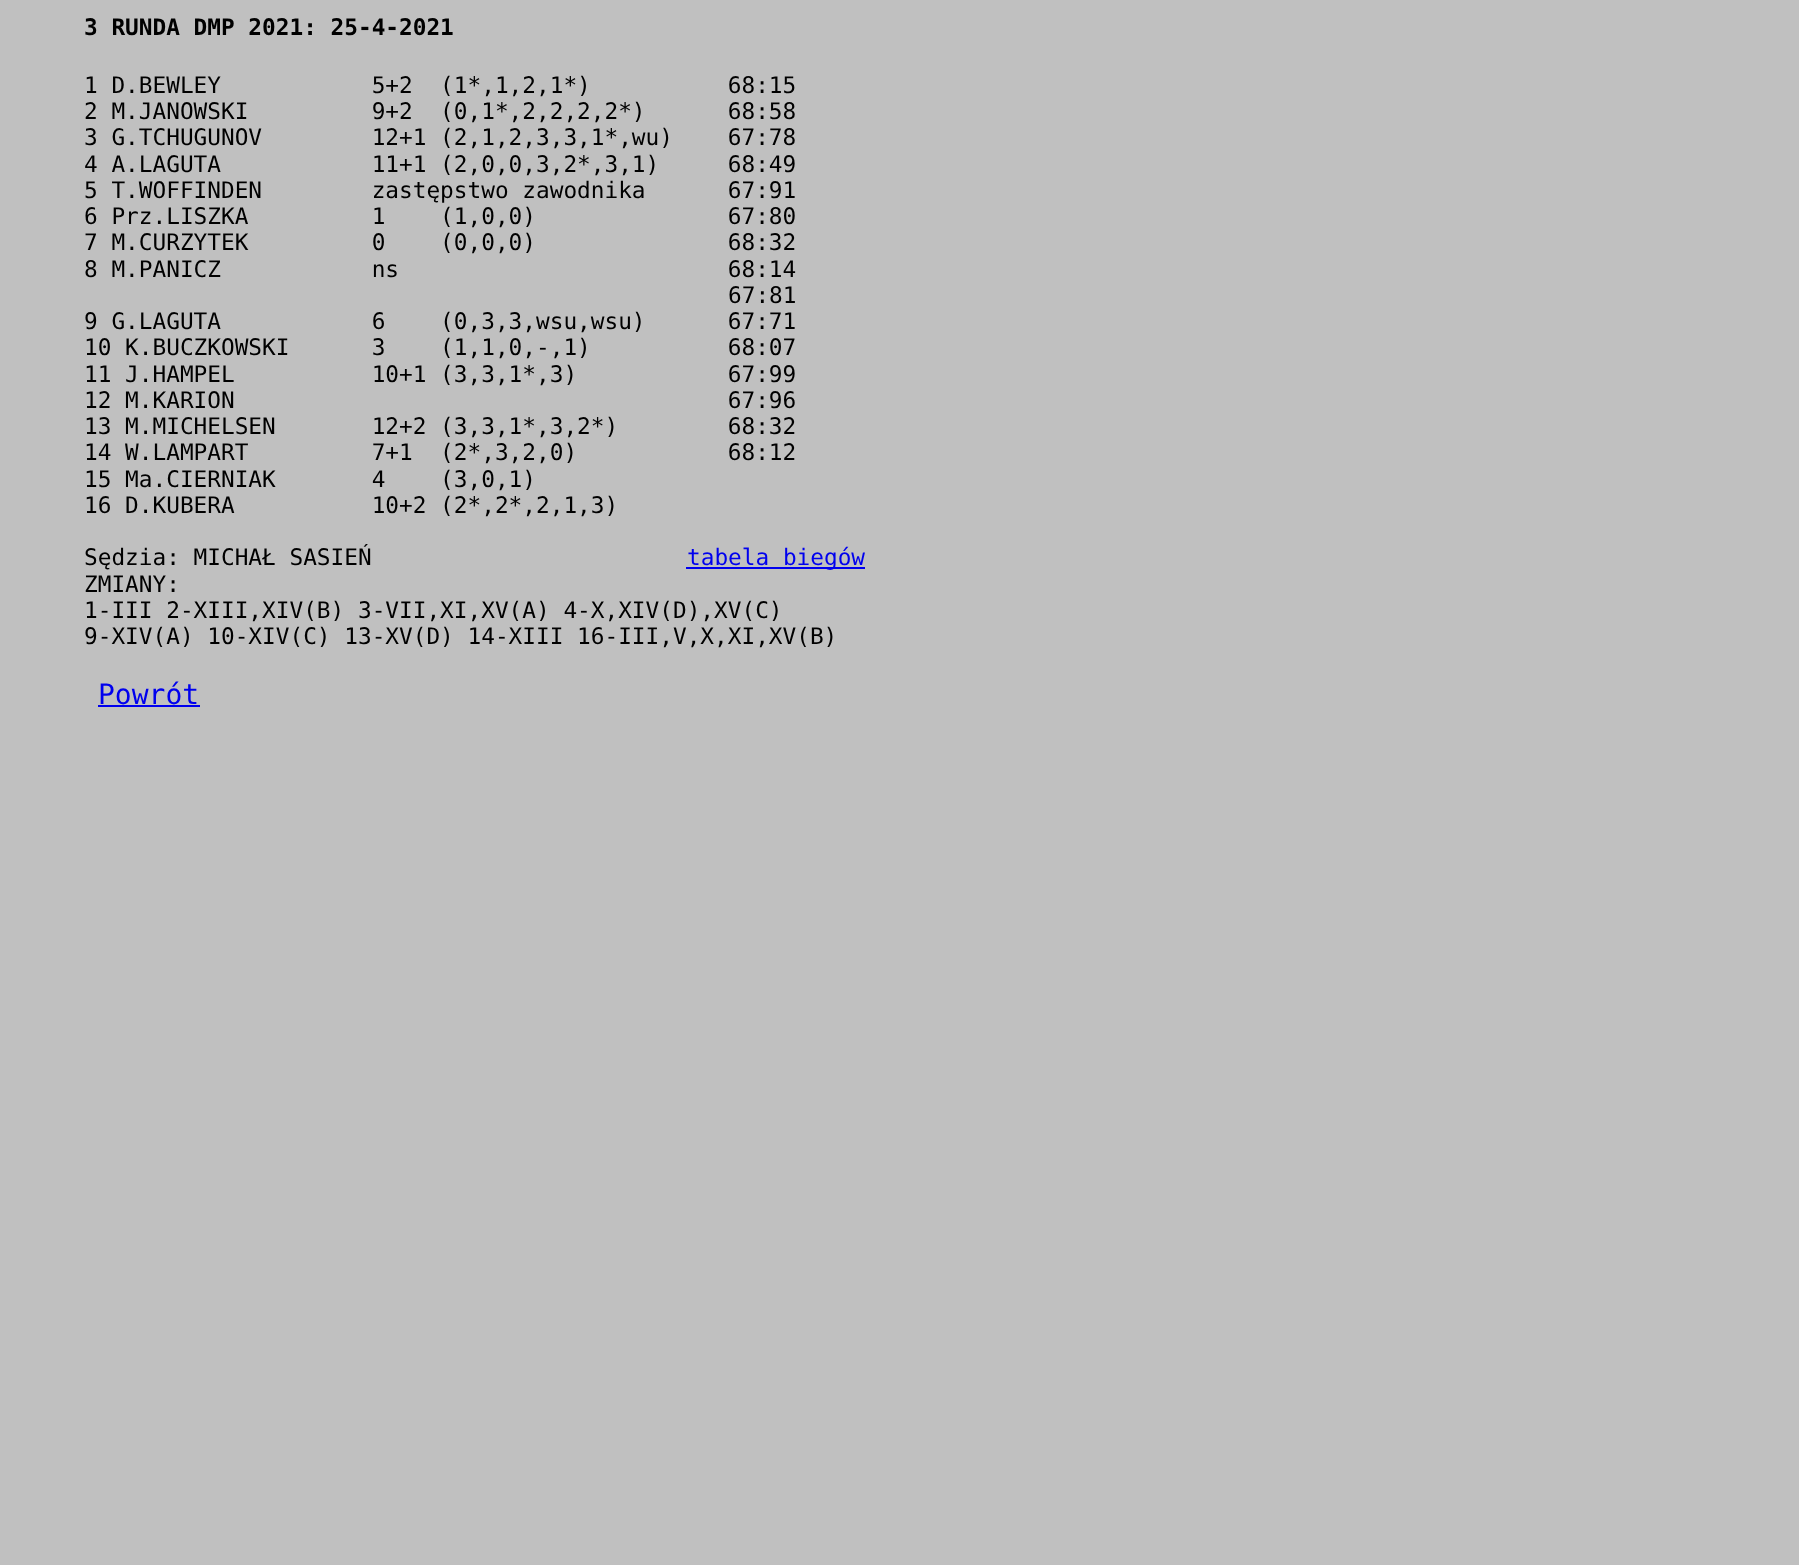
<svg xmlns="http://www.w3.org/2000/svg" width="1799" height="1565">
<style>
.a{font:bold 22.75px DejaVu Sans Mono;fill:#000}
.b{font:22.75px DejaVu Sans Mono;fill:#000}
.c{font:22.75px DejaVu Sans Mono;fill:#00e}
.d{font:28px DejaVu Sans Mono;fill:#00e}
</style>
<rect width="100%" height="100%" fill="#c0c0c0"/>
<path fill="#00e" d="M686 567h179v2H686z"/>
<path fill="#00e" d="M98 705h102v2H98z"/>
<text class="a" x="84" y="35">3 RUNDA DMP 2021: 25-4-2021</text>
<text class="b" xml:space="preserve" x="84" y="93">1 D.BEWLEY           5+2  (1*,1,2,1*)          68:15</text>
<text class="b" xml:space="preserve" x="84" y="119">2 M.JANOWSKI         9+2  (0,1*,2,2,2,2*)      68:58</text>
<text class="b" xml:space="preserve" x="84" y="145">3 G.TCHUGUNOV        12+1 (2,1,2,3,3,1*,wu)    67:78</text>
<text class="b" xml:space="preserve" x="84" y="172">4 A.LAGUTA           11+1 (2,0,0,3,2*,3,1)     68:49</text>
<text class="b" xml:space="preserve" x="84" y="198">5 T.WOFFINDEN        zastępstwo zawodnika      67:91</text>
<text class="b" xml:space="preserve" x="84" y="224">6 Prz.LISZKA         1    (1,0,0)              67:80</text>
<text class="b" xml:space="preserve" x="84" y="250">7 M.CURZYTEK         0    (0,0,0)              68:32</text>
<text class="b" xml:space="preserve" x="84" y="277">8 M.PANICZ           ns                        68:14</text>
<text class="b" x="728" y="303">67:81</text>
<text class="b" xml:space="preserve" x="84" y="329">9 G.LAGUTA           6    (0,3,3,wsu,wsu)      67:71</text>
<text class="b" xml:space="preserve" x="84" y="355">10 K.BUCZKOWSKI      3    (1,1,0,-,1)          68:07</text>
<text class="b" xml:space="preserve" x="84" y="382">11 J.HAMPEL          10+1 (3,3,1*,3)           67:99</text>
<text class="b" xml:space="preserve" x="84" y="408">12 M.KARION                                    67:96</text>
<text class="b" xml:space="preserve" x="84" y="434">13 M.MICHELSEN       12+2 (3,3,1*,3,2*)        68:32</text>
<text class="b" xml:space="preserve" x="84" y="460">14 W.LAMPART         7+1  (2*,3,2,0)           68:12</text>
<text class="b" xml:space="preserve" x="84" y="487">15 Ma.CIERNIAK       4    (3,0,1)</text>
<text class="b" xml:space="preserve" x="84" y="513">16 D.KUBERA          10+2 (2*,2*,2,1,3)</text>
<text class="b" x="84" y="565">Sędzia: MICHAŁ SASIEŃ</text>
<text class="c" x="687" y="565">tabela biegów</text>
<text class="b" x="84" y="592">ZMIANY:</text>
<text class="b" x="84" y="618">1-III 2-XIII,XIV(B) 3-VII,XI,XV(A) 4-X,XIV(D),XV(C)</text>
<text class="b" x="84" y="644">9-XIV(A) 10-XIV(C) 13-XV(D) 14-XIII 16-III,V,X,XI,XV(B)</text>
<text class="d" x="98" y="704">Powrót</text>
</svg>
